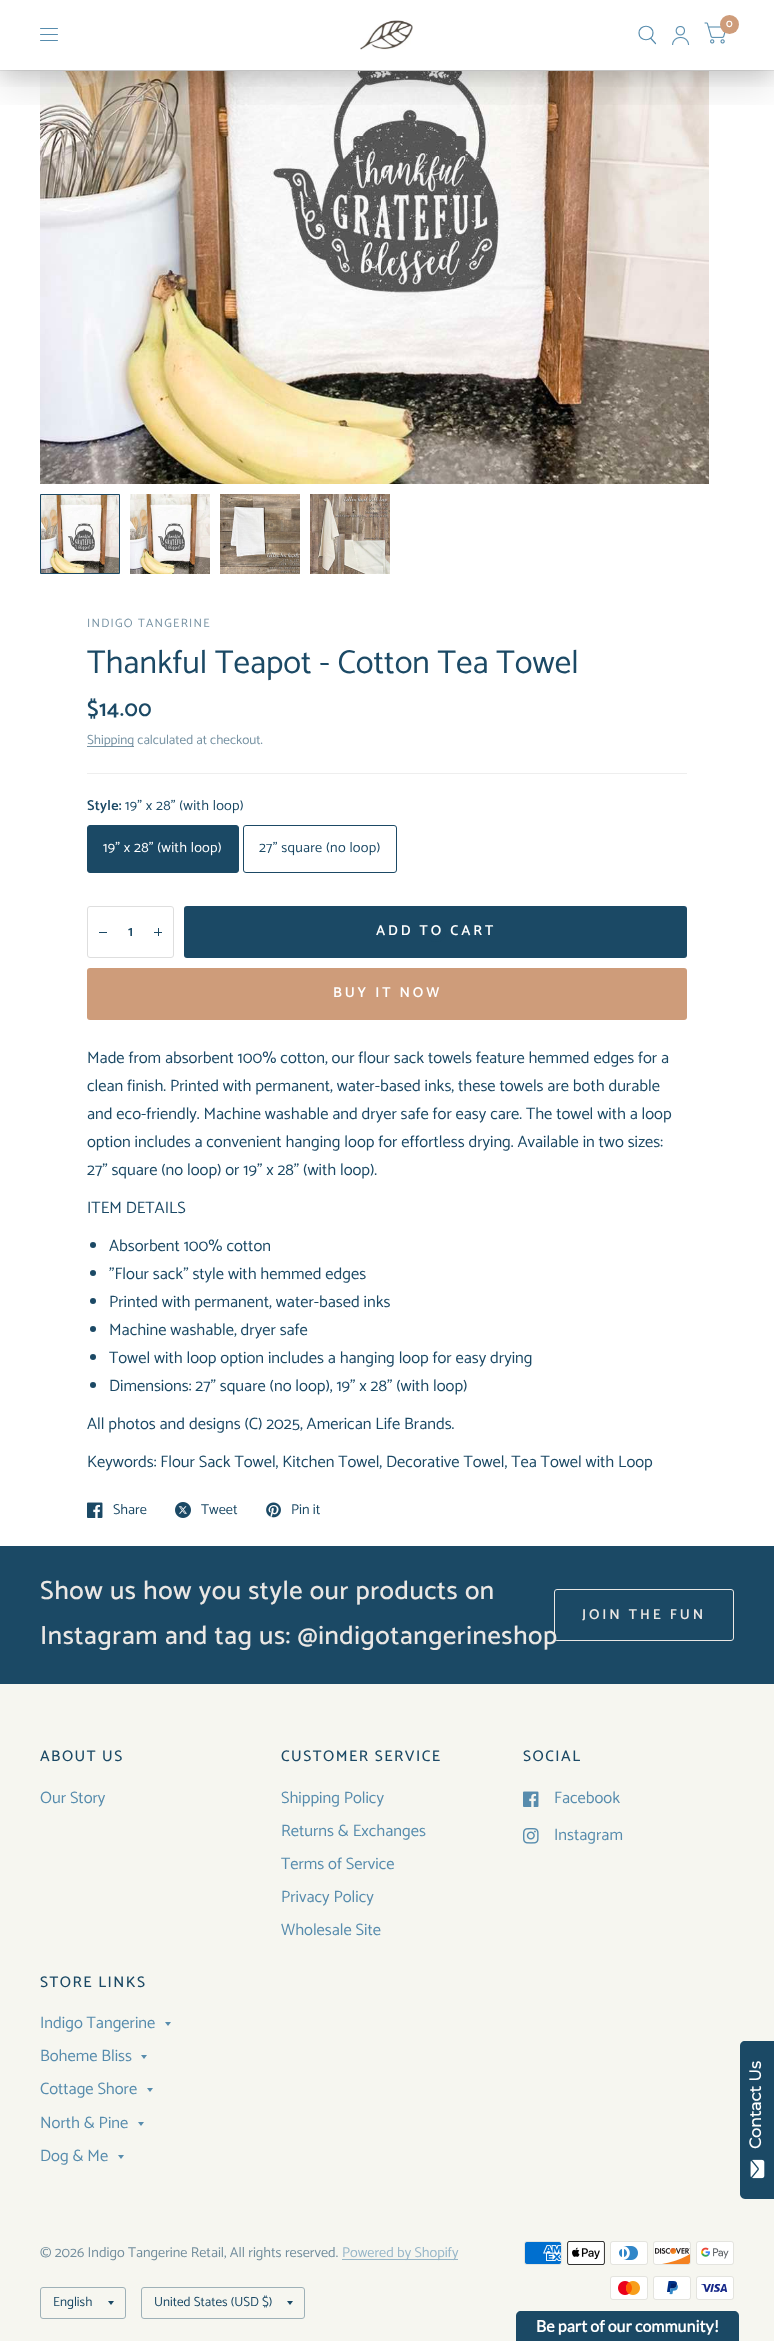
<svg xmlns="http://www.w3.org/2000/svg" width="774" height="2341">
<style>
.a{font:600 11px Catamaran;fill:#fff}
.b{font:12.1px Catamaran;letter-spacing:1.25px;fill:#7692a3}
.c{font:33px Catamaran;fill:#1b4965}
.d{font:600 22px Catamaran;letter-spacing:0.5px;fill:#1b4965}
.e{font:13.25px Catamaran;fill:#7692a3}
.f{font:600 14.3px Catamaran;letter-spacing:0.25px;fill:#1b4965}
.g{font:14.3px Catamaran;letter-spacing:0.25px;fill:#1b4965}
.h{font:14.3px Catamaran;letter-spacing:0.25px;fill:#fff}
.i{font:600 14.3px Catamaran;fill:#1b4965}
.j{font:600 14.3px Catamaran;letter-spacing:2.9px;fill:#fff}
.k{font:16.5px Catamaran;fill:#1b4965}
.l{font:14.3px Catamaran;fill:#1b4965}
.m{font:500 26.4px Catamaran;letter-spacing:0.55px;fill:#eae7e4}
.n{font:600 14.3px Catamaran;letter-spacing:2.9px;fill:#eae7e4}
.o{font:500 15.4px Catamaran;letter-spacing:1.5px;fill:#1b4965}
.p{font:16.5px Catamaran;fill:#578cad}
.q{font:14.3px Catamaran;fill:#738e9d}
.r{font:14.3px Catamaran;fill:#97b6c8}
.s{font:13.25px Catamaran;fill:#1b4965}
.t{font:bold 16px Montserrat;fill:#fff}
.u{font:bold 16px Lato;fill:#fff}
</style>
<defs>
<clipPath id="clip1"><path d="M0 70h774v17H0z"/></clipPath>
<clipPath id="clip2"><path d="M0 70h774v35H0z"/></clipPath>
</defs>
<rect width="100%" height="100%" fill="#fff"/>
<path fill="#eee" d="M0 70h774v1H0z"/>
<image href="4.png" x="40" y="71" width="669" height="413"/>
<g clip-path="url(#clip1)">
<path fill="#00000026" filter="blur(11px)" d="M0 5h774v70H0z"/>
</g>
<g clip-path="url(#clip2)">
<path fill="#0000001a" filter="blur(19px)" d="M0 19h774v70H0z"/>
</g>
<image href="1.png" x="360" y="20" width="53" height="30"/>
<image href="2.png" x="704" y="22" width="22" height="22"/>
<circle fill="#ce9c7a" cx="729.5" cy="24.5" r="9.5"/>
<path fill="none" stroke="#578cad" stroke-width="1.2" stroke-linecap="round" stroke-linejoin="round" d="M651 38.5l4.5 5m-2.5-10.5c0 9-14 9-14 0c0-9 14-9 14 0z"/>
<image href="3.png" x="672" y="26" width="18" height="19"/>
<rect fill="#578cad" x="40" y="28" width="18" height="1" rx="0.5"/>
<rect fill="#578cad" x="40" y="34" width="18" height="1" rx="0.5"/>
<rect fill="#578cad" x="40" y="40" width="18" height="1" rx="0.5"/>
<image href="5.png" x="41" y="495" width="78" height="78"/>
<path fill="none" stroke="#1b4965" d="M40.5 494.5h79v79H40.5z"/>
<image href="6.png" x="130" y="494" width="80" height="80"/>
<image href="7.png" x="220" y="494" width="80" height="80"/>
<image href="8.png" x="310" y="494" width="80" height="80"/>
<path fill="#eee" d="M87 773h600v1H87z"/>
<path fill="#7692a3" d="M87 746h47v1H87z"/>
<rect fill="#1b4965" stroke="#1b4965" x="87.5" y="825.5" width="151" height="47" rx="2.5"/>
<rect fill="none" stroke="#1b4965" x="243.5" y="825.5" width="153" height="47" rx="2.5"/>
<rect fill="none" stroke="#dedede" x="87.5" y="906.5" width="86" height="51" rx="2.5"/>
<path fill="#1b4965" d="M99 932h8v1H99z"/>
<path fill="#1b4965" d="M158 928h1v8H158z"/>
<path fill="#1b4965" d="M154 932h8v1H154z"/>
<rect fill="#1b4965" x="184" y="906" width="503" height="52" rx="3"/>
<rect fill="#ce9c7a" x="87" y="968" width="600" height="52" rx="3"/>
<circle fill="#1b4965" cx="93" cy="1245" r="3"/>
<circle fill="#1b4965" cx="93" cy="1273" r="3"/>
<circle fill="#1b4965" cx="93" cy="1301" r="3"/>
<circle fill="#1b4965" cx="93" cy="1329" r="3"/>
<circle fill="#1b4965" cx="93" cy="1357" r="3"/>
<circle fill="#1b4965" cx="93" cy="1385" r="3"/>
<image href="9.png" x="87" y="1502" width="16" height="16"/>
<image href="10.png" x="175" y="1502" width="16" height="16"/>
<image href="11.png" x="266" y="1502" width="15" height="16"/>
<path fill="#1b4965" d="M0 1546h774v138H0z"/>
<rect fill="none" stroke="#eae7e4" x="554.5" y="1589.5" width="179" height="51" rx="2.5"/>
<path fill="#f6f6f0" d="M0 1684h774v657H0z"/>
<image href="12.png" x="523" y="1791" width="16" height="16"/>
<image href="13.png" x="523" y="1828" width="16" height="16"/>
<path fill="#578cad" d="M165 2022h6l-3 4zm-24 33h6l-3 4z"/>
<path fill="#578cad" d="M147 2088h6l-3 4zm-9 34h6l-3 4z"/>
<path fill="#578cad" d="M118 2155h6l-3 4z"/>
<path fill="#97b6c8" d="M342 2259h116v1H342z"/>
<rect fill="none" stroke="#9eb1b8" x="40.5" y="2287.5" width="85" height="31" rx="2.5"/>
<path fill="#1b4965" d="M108 2301h6l-3 4z"/>
<rect fill="none" stroke="#9eb1b8" x="141.5" y="2287.5" width="163" height="31" rx="2.5"/>
<path fill="#1b4965" d="M287 2301h6l-3 4z"/>
<image href="14.png" x="524" y="2241" width="38" height="24"/>
<image href="15.png" x="567" y="2241" width="38" height="24"/>
<image href="16.png" x="610" y="2241" width="38" height="24"/>
<image href="17.png" x="653" y="2241" width="38" height="24"/>
<image href="18.png" x="696" y="2241" width="38" height="24"/>
<image href="19.png" x="610" y="2276" width="38" height="24"/>
<image href="20.png" x="653" y="2276" width="38" height="24"/>
<image href="21.png" x="696" y="2276" width="38" height="24"/>
<path fill="#1b4965" d="M740 2194v-148c0-3 2-5 5-5h29v158h-29c-3 0-5-3-5-5z"/>
<image href="22.png" x="750" y="2159" width="15" height="20"/>
<path fill="#1b4965" d="M521 2311h213c3 0 5 2 5 5v25h-223v-25c0-3 2-5 5-5z"/>
<text class="a" x="726" y="27">0</text>
<text class="b" x="87" y="627">INDIGO TANGERINE</text>
<text class="c" x="87" y="673">Thankful Teapot - Cotton Tea Towel</text>
<text class="d" x="87" y="716">$14.00</text>
<text class="e" x="87" y="744">Shipping calculated at checkout.</text>
<text class="f" x="87" y="810">Style:</text>
<text class="g" x="125" y="810">19" x 28" (with loop)</text>
<text class="h" x="103" y="852">19" x 28" (with loop)</text>
<text class="g" x="259" y="852">27" square (no loop)</text>
<text class="i" x="128" y="936">1</text>
<text class="j" x="376" y="935">ADD TO CART</text>
<path fill="none" stroke="#1b4965" stroke-width="1.8" d="M436 923c12 0 12 18 0 18c-12 0-12-18 0-18"/>
<text class="j" x="333" y="997">BUY IT NOW</text>
<text class="k" x="87" y="1063">Made from absorbent 100% cotton, our flour sack towels feature hemmed edges for a</text>
<text class="k" x="87" y="1091">clean finish. Printed with permanent, water-based inks, these towels are both durable</text>
<text class="k" x="87" y="1119">and eco-friendly. Machine washable and dryer safe for easy care. The towel with a loop</text>
<text class="k" x="87" y="1147">option includes a convenient hanging loop for effortless drying. Available in two sizes:</text>
<text class="k" x="87" y="1175">27" square (no loop) or 19" x 28" (with loop).</text>
<text class="k" x="87" y="1213">ITEM DETAILS</text>
<text class="k" x="109" y="1251">Absorbent 100% cotton</text>
<text class="k" x="109" y="1279">"Flour sack" style with hemmed edges</text>
<text class="k" x="109" y="1307">Printed with permanent, water-based inks</text>
<text class="k" x="109" y="1335">Machine washable, dryer safe</text>
<text class="k" x="109" y="1363">Towel with loop option includes a hanging loop for easy drying</text>
<text class="k" x="109" y="1391">Dimensions: 27" square (no loop), 19" x 28" (with loop)</text>
<text class="k" x="87" y="1429">All photos and designs (C) 2025, American Life Brands.</text>
<text class="k" x="87" y="1467">Keywords: Flour Sack Towel, Kitchen Towel, Decorative Towel, Tea Towel with Loop</text>
<text class="l" x="113" y="1514">Share</text>
<text class="l" x="201" y="1514">Tweet</text>
<text class="l" x="291" y="1514">Pin it</text>
<text class="m" x="40" y="1599">Show us how you style our products on</text>
<text class="m" x="40" y="1644">Instagram and tag us: @indigotangerineshop</text>
<text class="n" x="582" y="1619">JOIN THE FUN</text>
<text class="o" x="40" y="1761">ABOUT US</text>
<text class="p" x="40" y="1803">Our Story</text>
<text class="o" x="281" y="1761">CUSTOMER SERVICE</text>
<text class="p" x="281" y="1803">Shipping Policy</text>
<text class="p" x="281" y="1836">Returns &amp; Exchanges</text>
<text class="p" x="281" y="1869">Terms of Service</text>
<text class="p" x="281" y="1902">Privacy Policy</text>
<text class="p" x="281" y="1935">Wholesale Site</text>
<text class="o" x="523" y="1761">SOCIAL</text>
<text class="p" x="554" y="1803">Facebook</text>
<text class="p" x="554" y="1840">Instagram</text>
<text class="o" x="40" y="1987">STORE LINKS</text>
<text class="p" x="40" y="2028">Indigo Tangerine</text>
<text class="p" x="40" y="2061">Boheme Bliss</text>
<text class="p" x="40" y="2094">Cottage Shore</text>
<text class="p" x="40" y="2128">North &amp; Pine</text>
<text class="p" x="40" y="2161">Dog &amp; Me</text>
<text class="q" x="40" y="2257">© 2026 Indigo Tangerine Retail, All rights reserved.</text>
<text class="r" x="342" y="2257">Powered by Shopify</text>
<text class="s" x="53" y="2306">English</text>
<text class="s" x="154" y="2306">United States (USD $)</text>
<text class="t" x="761" y="2149" transform="rotate(-90 761 2149)">Contact Us</text>
<text class="u" x="536" y="2332">Be part of our community!</text>
</svg>
